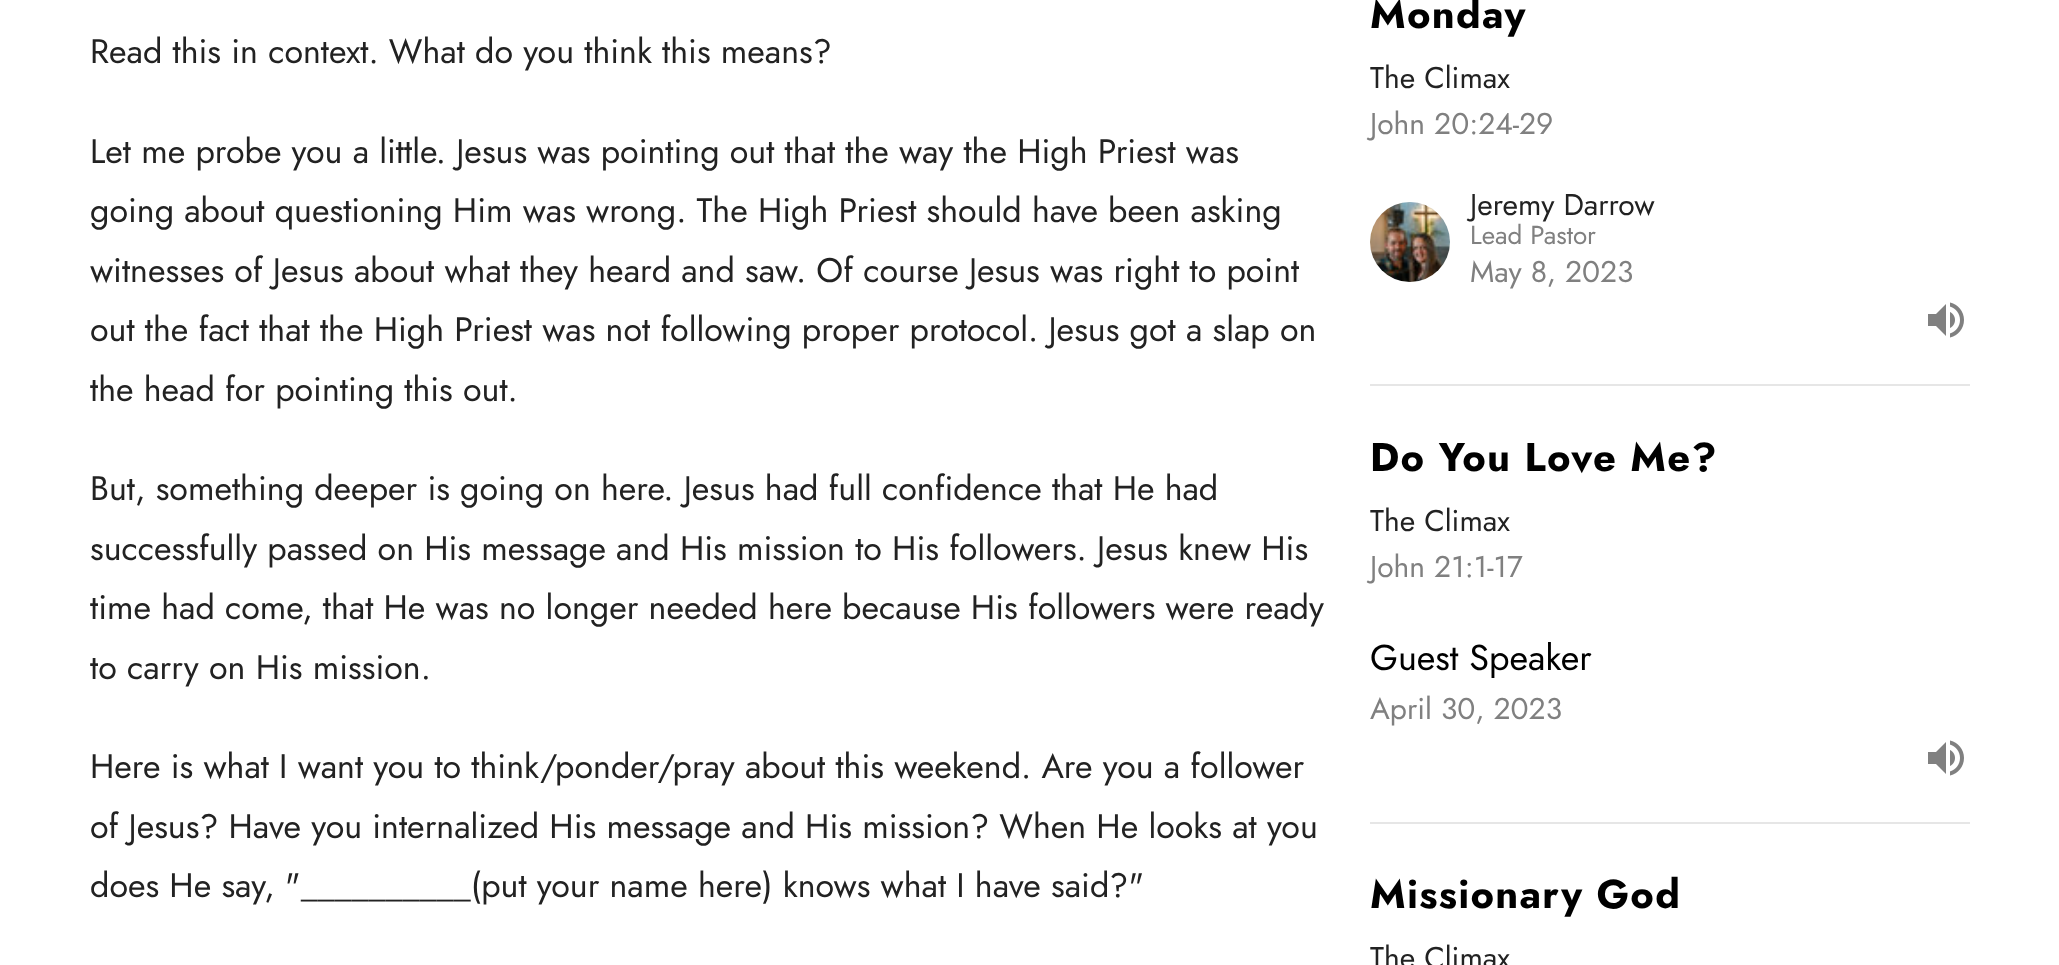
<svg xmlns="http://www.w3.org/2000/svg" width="2059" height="965">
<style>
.a{font:34px Jost;fill:#222}
.b{font:bold 40px Jost;letter-spacing:1.25px;fill:#000}
.c{font:30px Jost;fill:#222}
.d{font:30px Jost;fill:#808080}
.e{font:26px Jost;fill:#808080}
.f{font:36px Jost;fill:#000}
</style>
<rect width="100%" height="100%" fill="#fff"/>
<path fill="#e6e6e6" d="M1370 384h600v2H1370z"/>
<image href="1.png" x="1370" y="202" width="80" height="80"/>
<image href="2.png" x="1928" y="302" width="36" height="36"/>
<path fill="#e6e6e6" d="M1370 822h600v2H1370z"/>
<image href="2.png" x="1928" y="740" width="36" height="36"/>
<text class="a" x="90" y="63">Read this in context. What do you think this means?</text>
<text class="a" x="90" y="163">Let me probe you a little. Jesus was pointing out that the way the High Priest was</text>
<text class="a" x="90" y="222">going about questioning Him was wrong. The High Priest should have been asking</text>
<text class="a" x="90" y="282">witnesses of Jesus about what they heard and saw. Of course Jesus was right to point</text>
<text class="a" x="90" y="341">out the fact that the High Priest was not following proper protocol. Jesus got a slap on</text>
<text class="a" x="90" y="401">the head for pointing this out.</text>
<text class="a" x="90" y="500">But, something deeper is going on here. Jesus had full confidence that He had</text>
<text class="a" x="90" y="560">successfully passed on His message and His mission to His followers. Jesus knew His</text>
<text class="a" x="90" y="619">time had come, that He was no longer needed here because His followers were ready</text>
<text class="a" x="90" y="679">to carry on His mission.</text>
<text class="a" x="90" y="778">Here is what I want you to think/ponder/pray about this weekend. Are you a follower</text>
<text class="a" x="90" y="838">of Jesus? Have you internalized His message and His mission? When He looks at you</text>
<text class="a" x="90" y="897">does He say, "__________(put your name here) knows what I have said?"</text>
<text class="b" x="1370" y="28">Monday</text>
<text class="c" x="1370" y="88">The Climax</text>
<text class="d" x="1370" y="134">John 20:24-29</text>
<text class="c" x="1470" y="215">Jeremy Darrow</text>
<text class="e" x="1470" y="244">Lead Pastor</text>
<text class="d" x="1470" y="282">May 8, 2023</text>
<text class="b" x="1370" y="471">Do You Love Me?</text>
<text class="c" x="1370" y="531">The Climax</text>
<text class="d" x="1370" y="577">John 21:1-17</text>
<text class="f" x="1370" y="670">Guest Speaker</text>
<text class="d" x="1370" y="719">April 30, 2023</text>
<text class="b" x="1370" y="908">Missionary God</text>
<text class="c" x="1370" y="968">The Climax</text>
</svg>
